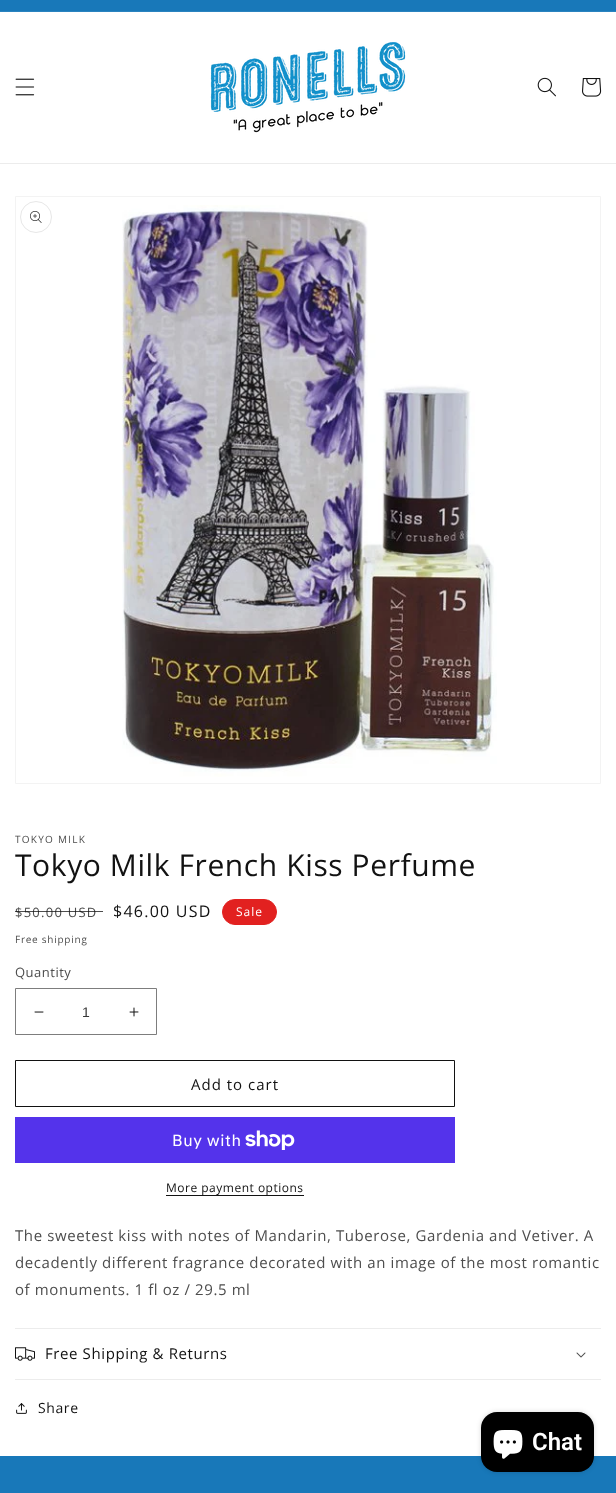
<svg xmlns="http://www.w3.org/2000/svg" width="616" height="1493">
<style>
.a{font:10px Open Sans;letter-spacing:1.25px;fill:#4d4d4d}
.b{font:30px Open Sans;letter-spacing:0.6px;fill:#121212}
.c{font:13px Open Sans;letter-spacing:1.25px;fill:#4d4d4d}
.d{font:16px Open Sans;letter-spacing:1.25px;fill:#121212}
.e{font:12px Open Sans;letter-spacing:1px;fill:#fff}
.f{font:10px Open Sans;letter-spacing:0.75px;fill:#4d4d4d}
.g{font:13px Open Sans;letter-spacing:0.5px;fill:#4d4d4d}
.h{font:14px Liberation Sans;fill:#363636}
.i{font:15px Open Sans;letter-spacing:1px;fill:#121212}
.j{font:16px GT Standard;letter-spacing:0.6px;fill:#fff}
.k{font:12px Open Sans;letter-spacing:0.5px;fill:#121212}
.l{font:15px Open Sans;letter-spacing:0.6px;fill:#4d4d4d}
.m{font:15px Open Sans;letter-spacing:0.6px;fill:#121212}
.n{font:14px Open Sans;letter-spacing:0.6px;fill:#121212}
.o{font:600 24px Roboto;fill:#fff}
</style>
<rect width="100%" height="100%" fill="#fff"/>
<path fill="#1878b9" d="M0 0h616v11H0z"/>
<path fill="#2a83bf" d="M0 11h616v1H0z"/>
<path fill="#ececec" d="M0 163h616v1H0z"/>
<image href="1.png" x="15" y="78" width="20" height="18"/>
<image href="2.png" x="210" y="42" width="196" height="91"/>
<image href="3.png" x="537" y="77" width="19" height="20"/>
<image href="4.png" x="582" y="78" width="20" height="19"/>
<path fill="none" stroke="#f3f3f3" d="M15.5 196.5h585v587H15.5z"/>
<image href="5.png" x="122" y="205" width="375" height="572"/>
<circle fill="none" stroke="#e7e7e7" cx="36" cy="217" r="15.5"/>
<image href="6.png" x="30" y="211" width="12" height="12"/>
<rect fill="#e22120" stroke="#e22120" x="222.5" y="899.5" width="54" height="25" rx="12.5"/>
<image href="7.png" x="34" y="1011" width="10" height="2"/>
<image href="8.png" x="129" y="1007" width="10" height="10"/>
<path fill="none" stroke="#7d7d7d" d="M15.5 988.5h141v46H15.5z"/>
<path fill="none" stroke="#121212" d="M15.5 1060.5h439v46H15.5z"/>
<path fill="#5433eb" d="M15 1117h440v46H15z"/>
<image href="9.png" x="245" y="1130" width="50" height="20"/>
<path fill="#121212" d="M166 1195h138v1H166z"/>
<path fill="#ececec" d="M15 1328h586v1H15z"/>
<path fill="#ececec" d="M15 1379h586v1H15z"/>
<image href="10.png" x="15" y="1347" width="20" height="14"/>
<image href="11.png" x="576" y="1352" width="10" height="6"/>
<image href="12.png" x="16" y="1403" width="11" height="11"/>
<path fill="#1878b9" d="M0 1456h616v37H0z"/>
<rect fill="#00000026" filter="blur(2.5px)" x="481" y="1412" width="113" height="60" rx="16"/>
<rect fill="#000" x="481" y="1412" width="113" height="60" rx="16"/>
<image href="13.png" x="493" y="1430" width="30" height="29"/>
<text class="a" x="15" y="843">TOKYO MILK</text>
<text class="b" x="15" y="876">Tokyo Milk French Kiss Perfume</text>
<text class="c" x="15" y="917">$50.00 USD</text>
<path fill="#121212bf" d="M15 911h88v1H15z"/>
<text class="d" x="113" y="917">$46.00 USD</text>
<text class="e" x="236" y="916">Sale</text>
<text class="f" x="15" y="943">Free shipping</text>
<text class="g" x="15" y="977">Quantity</text>
<text class="h" x="82" y="1017">1</text>
<text class="i" x="191" y="1090">Add to cart</text>
<text class="j" x="172" y="1146">Buy with</text>
<text class="k" x="166" y="1192">More payment options</text>
<text class="l" x="15" y="1241">The sweetest kiss with notes of Mandarin, Tuberose, Gardenia and Vetiver. A</text>
<text class="l" x="15" y="1268">decadently different fragrance decorated with an image of the most romantic</text>
<text class="l" x="15" y="1295">of monuments. 1 fl oz / 29.5 ml</text>
<text class="m" x="45" y="1359">Free Shipping &amp; Returns</text>
<text class="n" x="38" y="1413">Share</text>
<text class="o" x="532" y="1450">Chat</text>
</svg>
